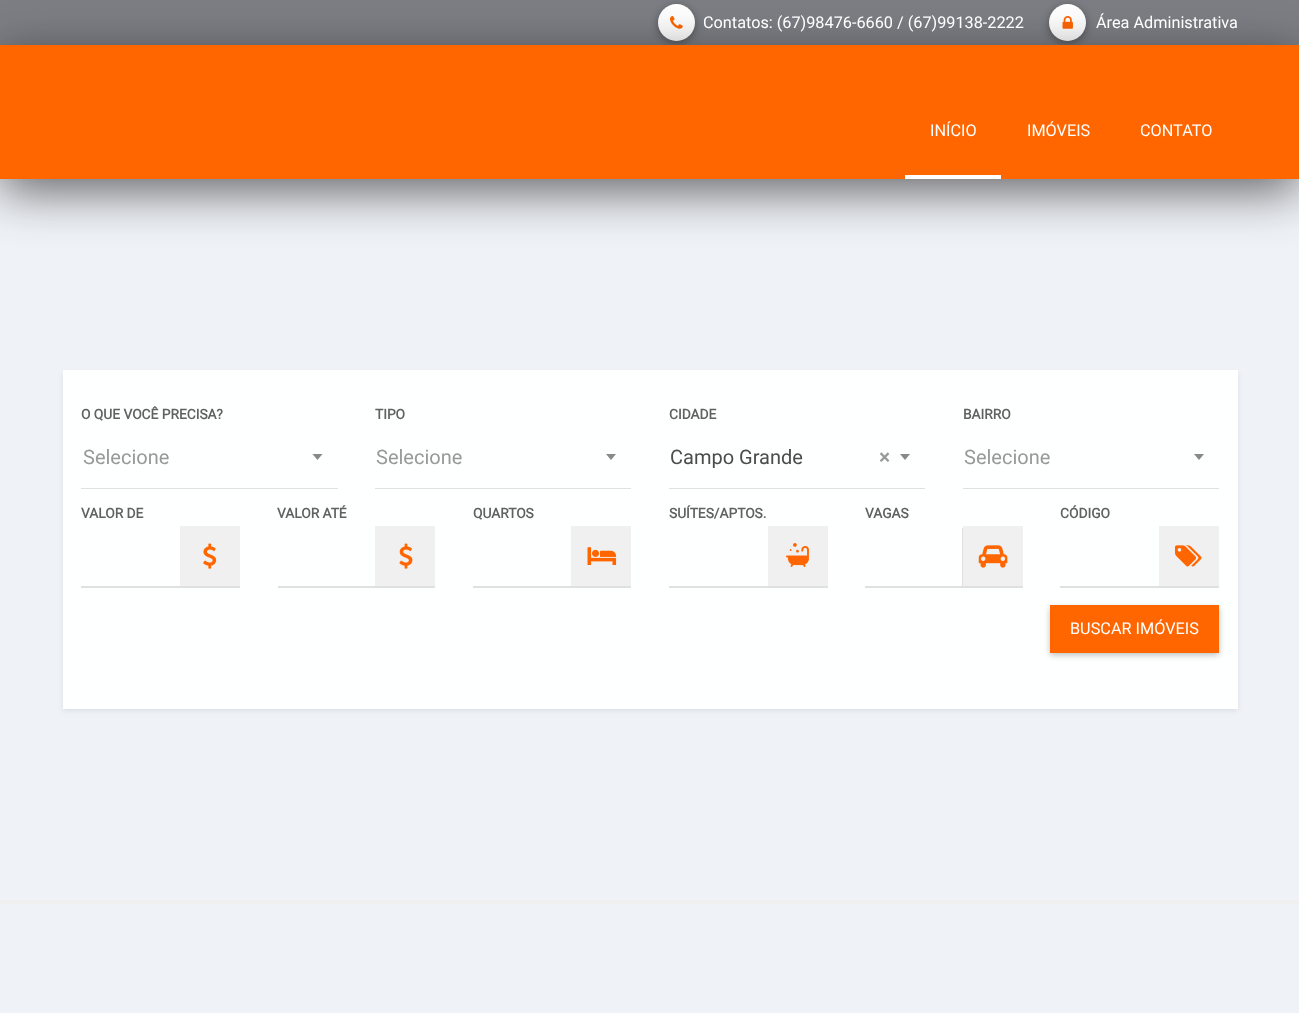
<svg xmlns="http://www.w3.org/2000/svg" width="1299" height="1013">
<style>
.a{font:16.25px Roboto;fill:#fff}
.b{font:bold 13.75px Roboto;fill:#616161}
.c{font:20px Roboto;fill:#999}
.d{font:20px Roboto;fill:#4c4c4c}
.e{font:bold 20px Roboto;fill:#999}
</style>
<defs>
<clipPath id="clip1"><path d="M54 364h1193v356h-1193zm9 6h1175v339h-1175z" clip-rule="evenodd"/></clipPath>
</defs>
<rect width="100%" height="100%" fill="#eff3f8"/>
<path fill="#7c7e84" d="M0 0h1299v45H0z"/>
<rect fill="#00000057" filter="blur(4px)" x="658" y="6" width="37" height="38" rx="18.5"/>
<circle fill="#fff" cx="676.5" cy="22.5" r="18.5"/>
<image href="1.png" x="670" y="16" width="13" height="13"/>
<rect fill="#00000057" filter="blur(4px)" x="1049" y="6" width="37" height="38" rx="18.5"/>
<circle fill="#fff" cx="1067.5" cy="22.5" r="18.5"/>
<image href="2.png" x="1062" y="16" width="11" height="13"/>
<path fill="#1e191bab" filter="blur(25px)" d="M0 58h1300v133H0z"/>
<path fill="#f60" d="M0 45h1299v134H0z"/>
<path fill="#fff" d="M905 175h96v4H905z"/>
<g clip-path="url(#clip1)">
<path fill="#00000014" filter="blur(2.5px)" d="M63 373h1175v338H63z"/>
</g>
<path fill="#fffffff0" d="M63 370h1175v339H63z"/>
<path fill="#e0e0e0" d="M81 429v60h257v-60v59h-257z"/>
<path fill="#888" d="M312.5 454h10l-5 6z"/>
<path fill="#e0e0e0" d="M375 488h256v1H375z"/>
<path fill="#888" d="M606 454h10l-5 6z"/>
<path fill="#e0e0e0" d="M669 488h256v1H669z"/>
<path fill="#888" d="M900 454h10l-5 6z"/>
<path fill="#e0e0e0" d="M963 488v1h256v-60v59z"/>
<path fill="#888" d="M1194 454h10l-5 6z"/>
<path fill="#e0e0e0" d="M81 528v60h99v-2h-99z"/>
<path fill="#e0e0e0" d="M180 586h60v2H180z"/>
<path fill="#f0f0f0" d="M180 526h60v60H180z"/>
<image href="3.png" x="203" y="543" width="14" height="26"/>
<path fill="#e0e0e0" d="M278 586h157v2H278z"/>
<path fill="#f0f0f0" d="M375 526h60v60H375z"/>
<image href="4.png" x="399" y="543" width="14" height="26"/>
<path fill="#e0e0e0" d="M473 586h98v2H473z"/>
<path fill="#e0e0e0" d="M571 528v60h60v-2h-60z"/>
<path fill="#f0f0f0" d="M571 526h60v60H571z"/>
<image href="5.png" x="587" y="547" width="30" height="18"/>
<path fill="#e0e0e0" d="M669 586v2h99v-60v58z"/>
<path fill="#e0e0e0" d="M768 586v2h60v-60v58z"/>
<path fill="#f0f0f0" d="M768 526h60v60H768z"/>
<image href="6.png" x="786" y="543" width="23" height="24"/>
<path fill="#e0e0e0" d="M865 586v2h98v-60h-1v58z"/>
<path fill="#e0e0e0" d="M963 586v2h60v-60h-1v58z"/>
<path fill="#f0f0f0" d="M963 526h60v60H963z"/>
<image href="7.png" x="978" y="545" width="30" height="23"/>
<path fill="#e0e0e0" d="M1060 586v2h99v-60v58z"/>
<path fill="#e0e0e0" d="M1159 586v2h60v-60v58z"/>
<path fill="#f0f0f0" d="M1159 526h60v60H1159z"/>
<image href="8.png" x="1175" y="545" width="27" height="22"/>
<path fill="#00000042" filter="blur(3px)" d="M1050 608h169v47H1050z"/>
<path fill="#f60" d="M1050 605h169v48H1050z"/>
<path fill="#f0f0f0" d="M0 900h1299v4H0z"/>
<text class="a" x="703" y="28">Contatos: (67)98476-6660 / (67)99138-2222</text>
<text class="a" x="1096" y="28">Área Administrativa</text>
<text class="a" x="930" y="136">INÍCIO</text>
<text class="a" x="1027" y="136">IMÓVEIS</text>
<text class="a" x="1140" y="136">CONTATO</text>
<text class="b" x="81" y="419">O QUE VOCÊ PRECISA?</text>
<text class="c" x="83" y="464">Selecione</text>
<text class="b" x="375" y="419">TIPO</text>
<text class="c" x="376" y="464">Selecione</text>
<text class="b" x="669" y="419">CIDADE</text>
<text class="d" x="670" y="464">Campo Grande</text>
<text class="e" x="879" y="464">×</text>
<text class="b" x="963" y="419">BAIRRO</text>
<text class="c" x="964" y="464">Selecione</text>
<text class="b" x="81" y="518">VALOR DE</text>
<text class="b" x="277" y="518">VALOR ATÉ</text>
<text class="b" x="473" y="518">QUARTOS</text>
<text class="b" x="669" y="518">SUÍTES/APTOS.</text>
<text class="b" x="865" y="518">VAGAS</text>
<text class="b" x="1060" y="518">CÓDIGO</text>
<text class="a" x="1070" y="634">BUSCAR IMÓVEIS</text>
</svg>
